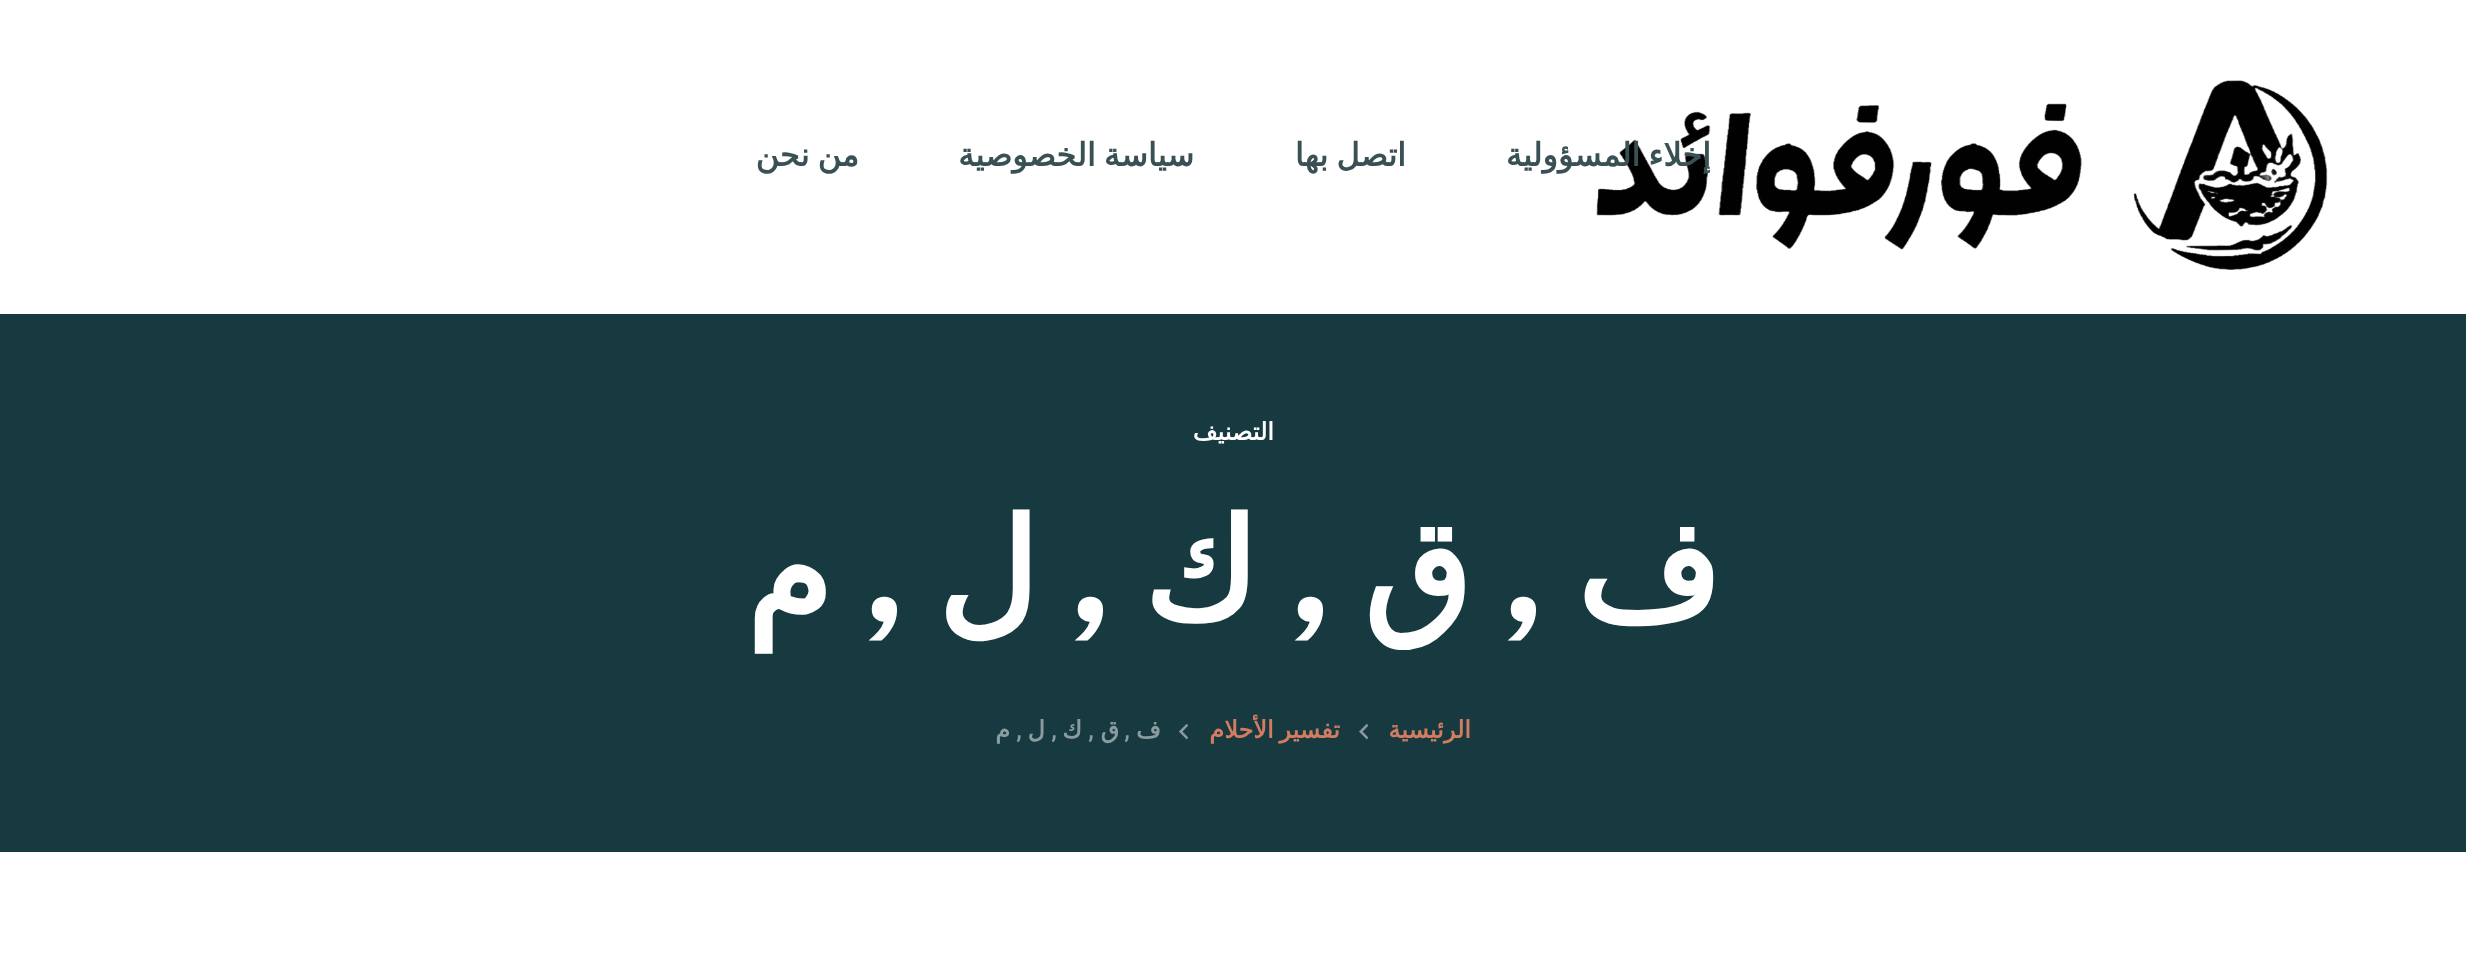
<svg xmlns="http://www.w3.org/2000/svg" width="2466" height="969">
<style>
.a{font:bold 32px DejaVu Sans;direction:rtl;fill:#395155}
.b{font:bold 24px DejaVu Sans;direction:rtl;fill:#fff}
.c{font:bold 140px DejaVu Sans;direction:rtl;fill:#fff}
.d{font:bold 140px IBM Plex Serif;direction:rtl;fill:#fff}
.e{font:bold 24px DejaVu Sans;direction:rtl;fill:#d27c61}
.f{font:bold 24px DejaVu Sans;direction:rtl;fill:#8b9ca0}
.g{font:600 24px Roboto;direction:rtl;fill:#8b9ca0}
</style>
<rect width="100%" height="100%" fill="#fff"/>
<image href="1.png" x="1596" y="80" width="732" height="190"/>
<path fill="#173940" d="M0 314h2466v538H0z"/>
<image href="2.png" x="1359" y="724" width="10" height="16"/>
<image href="3.png" x="1179" y="724" width="9" height="16"/>
<text class="a" x="1711" y="166" word-spacing="-2">إخلاء المسؤولية</text>
<text class="a" x="1406" y="166" word-spacing="-2">اتصل بها</text>
<text class="a" x="1194" y="166" word-spacing="-2">سياسة الخصوصية</text>
<text class="a" x="859" y="166" word-spacing="-2">من نحن</text>
<text class="b" x="1274" y="440">التصنيف</text>
<text class="c" x="1721" y="620">ف</text>
<text class="d" x="1543" y="620">,</text>
<text class="c" x="1471" y="620">ق</text>
<text class="d" x="1330" y="620">,</text>
<text class="c" x="1258" y="620">ك</text>
<text class="d" x="1110" y="620">,</text>
<text class="c" x="1038" y="620">ل</text>
<text class="d" x="904" y="620">,</text>
<text class="c" x="832" y="620">م</text>
<text class="e" x="1471" y="738">الرئيسية</text>
<text class="e" x="1340" y="738" word-spacing="-2">تفسير الأحلام</text>
<text class="f" x="1161" y="738">ف</text>
<text class="g" x="1130" y="738">,</text>
<text class="f" x="1119" y="738">ق</text>
<text class="g" x="1094" y="738">,</text>
<text class="f" x="1082" y="738">ك</text>
<text class="g" x="1057" y="738">,</text>
<text class="f" x="1045" y="738">ل</text>
<text class="g" x="1022" y="738">,</text>
<text class="f" x="1010" y="738">م</text>
</svg>
